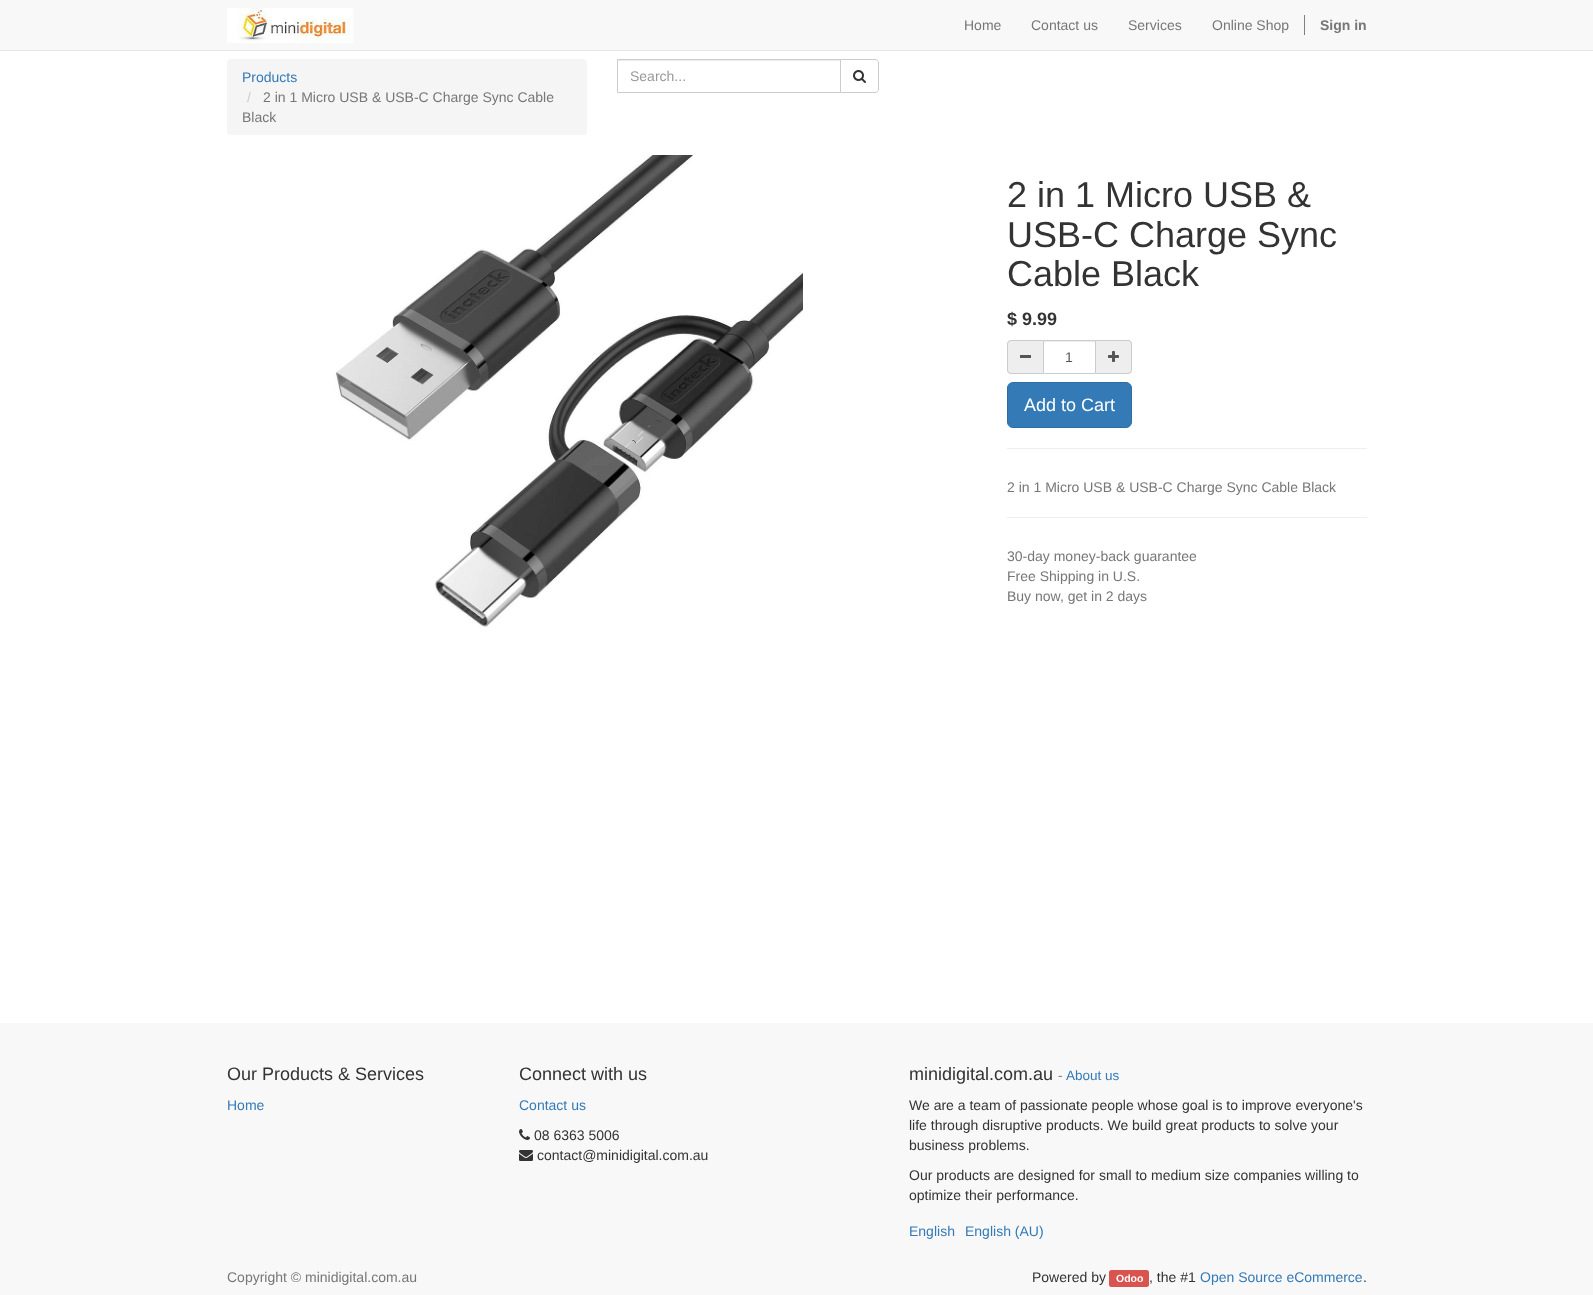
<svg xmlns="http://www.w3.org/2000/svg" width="1593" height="1295">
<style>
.a{font:14px Liberation Sans;fill:#777}
.b{font:bold 14px Liberation Sans;fill:#777}
.c{font:14px Liberation Sans;fill:#337ab7}
.d{font:14px Liberation Sans;fill:#ccc}
.e{font:14px Liberation Sans;fill:#999}
.f{font:36px Liberation Sans;fill:#333}
.g{font:bold 18px Liberation Sans;fill:#333}
.h{font:14px Liberation Sans;fill:#555}
.i{font:18px Liberation Sans;fill:#fff}
.j{font:18px Liberation Sans;fill:#333}
.k{font:14px Liberation Sans;fill:#333}
.l{font:13.5px Liberation Sans;fill:#777}
.m{font:13.5px Liberation Sans;fill:#337ab7}
.n{font:bold 10.5px Liberation Sans;fill:#fff}
</style>
<rect width="100%" height="100%" fill="#fff"/>
<path fill="#f8f8f8" d="M0 0h1593v50H0z"/>
<path fill="#e7e7e7" d="M0 50h1593v1H0z"/>
<image href="1.png" x="227" y="8" width="126" height="35"/>
<path fill="#808080" d="M1304 15h1v20H1304z"/>
<rect fill="#f5f5f5" x="227" y="59" width="360" height="76" rx="4"/>
<path fill="#ececec" d="M618 60h222v1H618z"/>
<path fill="none" stroke="#ccc" d="M617.5 59.5h223v33H617.5z"/>
<path fill="#fff" stroke="#ccc" d="M840.5 59.5h34.5c2 0 3.5 1.5 3.5 3.5v26c0 2-1.5 3.5-3.5 3.5h-34.5z"/>
<image href="2.png" x="853" y="70" width="13" height="13"/>
<image href="3.png" x="334" y="155" width="469" height="472"/>
<path fill="#eee" d="M1011 340h32v34h-32c-2 0-4-2-4-4v-26c0-2 2-4 4-4z"/>
<path fill="#ccc" fill-rule="evenodd" d="M1011 340h32v34h-32c-2 0-4-2-4-4v-26c0-2 2-4 4-4zm0 1h32v32h-32c-1.5 0-3-1.5-3-3v-26c0-1.5 1.5-3 3-3z"/>
<path fill="#555" d="M1020 355h11v3H1020z"/>
<path fill="#ececec" d="M1044 341h51v1H1044z"/>
<path fill="none" stroke="#ccc" d="M1043.5 340.5h52v33H1043.5z"/>
<path fill="#eee" d="M1096 340h32c2 0 4 2 4 4v26c0 2-2 4-4 4h-32z"/>
<path fill="#ccc" fill-rule="evenodd" d="M1096 340h32c2 0 4 2 4 4v26c0 2-2 4-4 4h-32zm0 1h32c1.5 0 3 1.5 3 3v26c0 1.5-1.5 3-3 3h-32z"/>
<image href="4.png" x="1108" y="351" width="11" height="11"/>
<rect fill="#337ab7" stroke="#2e6da4" x="1007.5" y="382.5" width="124" height="45" rx="5.5"/>
<path fill="#eee" d="M1007 448h360v1H1007z"/>
<path fill="#eee" d="M1007 517h360v1H1007z"/>
<path fill="#f8f8f8" d="M0 1023h1593v272H0z"/>
<image href="5.png" x="519" y="1129" width="11" height="11"/>
<image href="6.png" x="519" y="1150" width="14" height="11"/>
<rect fill="#d9534f" x="1109" y="1270" width="40" height="17" rx="2.5"/>
<text class="a" x="964" y="30">Home</text>
<text class="a" x="1031" y="30">Contact us</text>
<text class="a" x="1128" y="30">Services</text>
<text class="a" x="1212" y="30">Online Shop</text>
<text class="b" x="1320" y="30">Sign in</text>
<text class="c" x="242" y="82">Products</text>
<text class="d" x="247" y="102">/</text>
<text class="a" x="263" y="102">2 in 1 Micro USB &amp; USB-C Charge Sync Cable</text>
<text class="a" x="242" y="122">Black</text>
<text class="e" x="630" y="81">Search...</text>
<text class="f" x="1007" y="207">2 in 1 Micro USB &amp;</text>
<text class="f" x="1007" y="247">USB-C Charge Sync</text>
<text class="f" x="1007" y="286">Cable Black</text>
<text class="g" x="1007" y="325">$ 9.99</text>
<text class="h" x="1065" y="362">1</text>
<text class="i" x="1024" y="411">Add to Cart</text>
<text class="a" x="1007" y="492">2 in 1 Micro USB &amp; USB-C Charge Sync Cable Black</text>
<text class="a" x="1007" y="561">30-day money-back guarantee</text>
<text class="a" x="1007" y="581">Free Shipping in U.S.</text>
<text class="a" x="1007" y="601">Buy now, get in 2 days</text>
<text class="j" x="227" y="1080">Our Products &amp; Services</text>
<text class="c" x="227" y="1110">Home</text>
<text class="j" x="519" y="1080">Connect with us</text>
<text class="c" x="519" y="1110">Contact us</text>
<text class="k" x="534" y="1140">08 6363 5006</text>
<text class="k" x="537" y="1160">contact@minidigital.com.au</text>
<text class="j" x="909" y="1080">minidigital.com.au</text>
<text class="l" x="1058" y="1080">-</text>
<text class="m" x="1066" y="1080">About us</text>
<text class="k" x="909" y="1110">We are a team of passionate people whose goal is to improve everyone's</text>
<text class="k" x="909" y="1130">life through disruptive products. We build great products to solve your</text>
<text class="k" x="909" y="1150">business problems.</text>
<text class="k" x="909" y="1180">Our products are designed for small to medium size companies willing to</text>
<text class="k" x="909" y="1200">optimize their performance.</text>
<text class="c" x="909" y="1236">English</text>
<text class="c" x="965" y="1236">English (AU)</text>
<text class="a" x="227" y="1282">Copyright © minidigital.com.au</text>
<text class="k" x="1032" y="1282">Powered by</text>
<text class="n" x="1116" y="1282">Odoo</text>
<text class="k" x="1149" y="1282">, the #1</text>
<text class="c" x="1200" y="1282">Open Source eCommerce</text>
<text class="k" x="1363" y="1282">.</text>
</svg>
